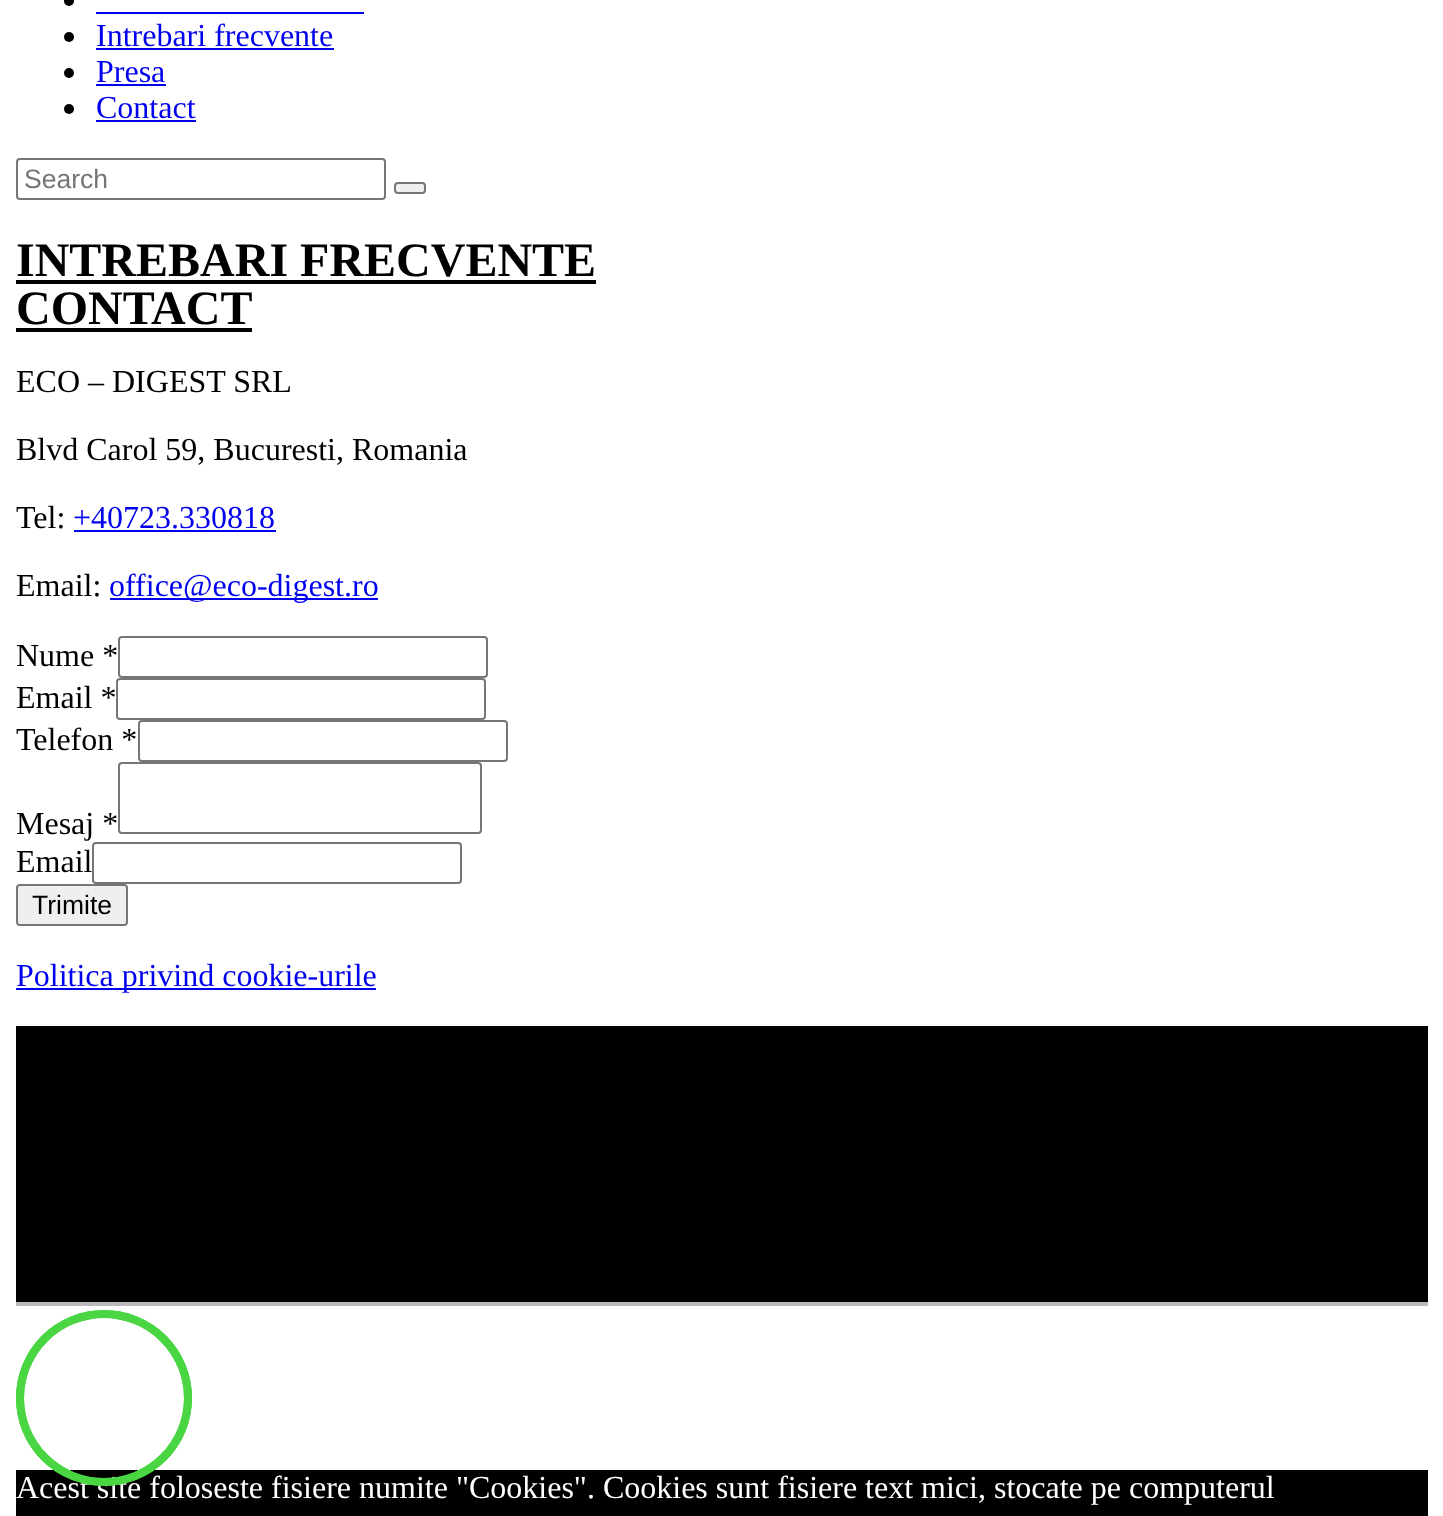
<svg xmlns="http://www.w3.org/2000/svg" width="1443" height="1516">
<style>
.a{font:32px Liberation Serif;fill:#00e}
.b{font:26.5px Liberation Sans;fill:#757575}
.c{font:bold 48px Liberation Serif;fill:#000}
.d{font:32px Liberation Serif;fill:#000}
.e{font:26.5px Liberation Sans;fill:#000}
.f{font:32px Liberation Serif;fill:#fff}
</style>
<rect width="100%" height="100%" fill="#fff"/>
<circle fill="#000" cx="69" cy="1" r="5"/>
<path fill="#00e" d="M96 12h268v2H96z"/>
<circle fill="#000" cx="69" cy="37" r="5"/>
<path fill="#00e" d="M96 48h238v2H96z"/>
<circle fill="#000" cx="69" cy="73" r="5"/>
<path fill="#00e" d="M96 84h70v2H96z"/>
<circle fill="#000" cx="69" cy="109" r="5"/>
<path fill="#00e" d="M96 120h100v2H96z"/>
<rect fill="none" stroke="#767676" stroke-width="2" x="17" y="159" width="368" height="40" rx="3"/>
<rect fill="#efefef" stroke="#767676" stroke-width="2" x="395" y="183" width="30" height="10" rx="3"/>
<path fill="#000" d="M16 280h580v4H16z"/>
<path fill="#000" d="M16 328h236v4H16z"/>
<path fill="#00e" d="M74 530h202v2H74z"/>
<path fill="#00e" d="M110 598h268v2H110z"/>
<rect fill="none" stroke="#767676" stroke-width="2" x="119" y="637" width="368" height="40" rx="3"/>
<rect fill="none" stroke="#767676" stroke-width="2" x="117" y="679" width="368" height="40" rx="3"/>
<rect fill="none" stroke="#767676" stroke-width="2" x="139" y="721" width="368" height="40" rx="3"/>
<rect fill="none" stroke="#767676" stroke-width="2" x="119" y="763" width="362" height="70" rx="3"/>
<rect fill="none" stroke="#767676" stroke-width="2" x="93" y="843" width="368" height="40" rx="3"/>
<rect fill="#efefef" stroke="#767676" stroke-width="2" x="17" y="885" width="110" height="40" rx="3"/>
<path fill="#00e" d="M16 988h360v2H16z"/>
<path fill="#000" d="M16 1026h1412v276H16z"/>
<path fill="#bababa" d="M16 1302h1412v4H16z"/>
<path fill="#000" d="M16 1470h1412v46H16z"/>
<text class="a" x="96" y="46">Intrebari frecvente</text>
<text class="a" x="96" y="82">Presa</text>
<text class="a" x="96" y="118">Contact</text>
<text class="b" x="24" y="188">Search</text>
<text class="c" x="16" y="276">INTREBARI FRECVENTE</text>
<text class="c" x="16" y="324">CONTACT</text>
<text class="d" x="16" y="392">ECO – DIGEST SRL</text>
<text class="d" x="16" y="460">Blvd Carol 59, Bucuresti, Romania</text>
<text class="d" x="16" y="528">Tel:</text>
<text class="a" x="73" y="528">+40723.330818</text>
<text class="d" x="16" y="596">Email:</text>
<text class="a" x="109" y="596">office@eco-digest.ro</text>
<text class="d" x="16" y="666">Nume *</text>
<text class="d" x="16" y="708">Email *</text>
<text class="d" x="16" y="750">Telefon *</text>
<text class="d" x="16" y="834">Mesaj *</text>
<text class="d" x="16" y="872">Email</text>
<text class="e" x="32" y="914">Trimite</text>
<text class="a" x="16" y="986">Politica privind cookie-urile</text>
<text class="f" x="16" y="1498">Acest site foloseste fisiere numite "Cookies". Cookies sunt fisiere text mici, stocate pe computerul</text>
<circle fill="none" stroke="#49d642" stroke-width="8" cx="104" cy="1398" r="84"/>
<circle fill="none" stroke="#49d642" stroke-width="8" cx="104" cy="1398" r="84"/>
</svg>
